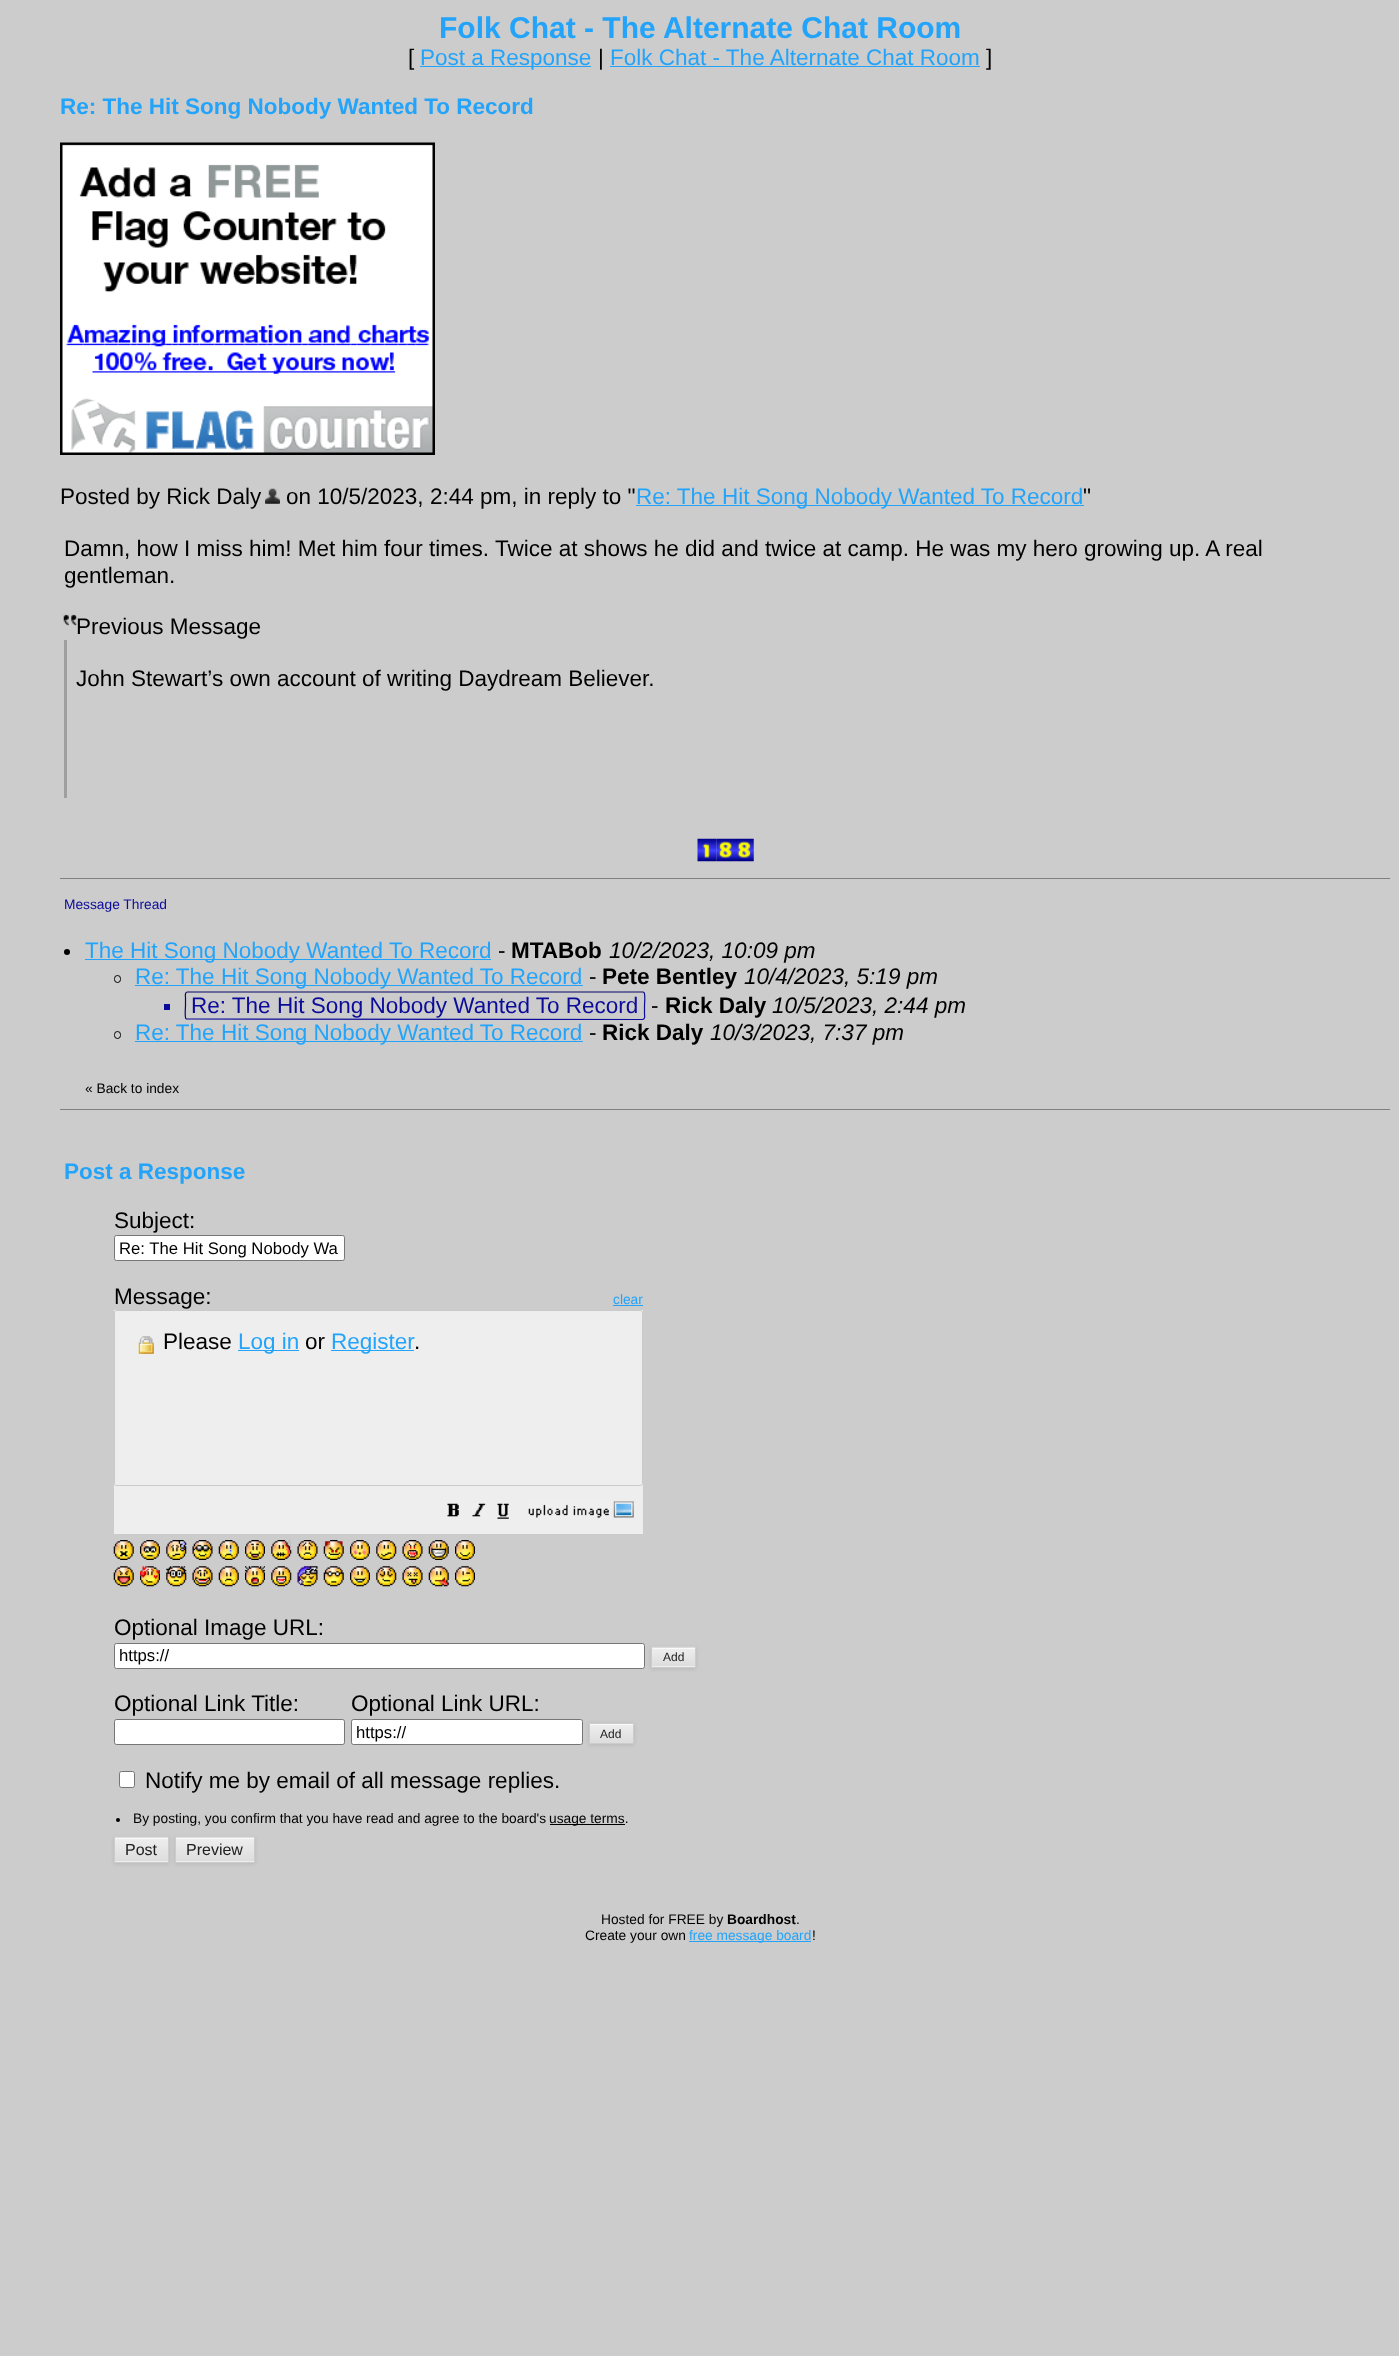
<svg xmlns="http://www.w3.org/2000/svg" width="1399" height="2356">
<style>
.a{font:bold 30px Liberation Sans;fill:#23a4fa}
.b{font:22.5px Liberation Sans;fill:#000}
.c{font:22.5px Liberation Sans;fill:#23a4fa}
.d{font:bold 22.5px Liberation Sans;fill:#23a4fa}
.e{font:13.75px Liberation Sans;fill:#0b0b99}
.f{font:bold 22.5px Liberation Sans;fill:#000}
.g{font:italic 22.5px Liberation Sans;fill:#000}
.h{font:22.5px Liberation Sans;fill:#0b0b99}
.i{font:13.75px Liberation Sans;fill:#000}
.j{font:16.7px Liberation Sans;fill:#000}
.k{font:13.75px Liberation Sans;fill:#23a4fa}
.l{font:12px Liberation Sans;fill:#202020}
.m{font:16px Liberation Sans;fill:#202020}
.n{font:bold 13.75px Liberation Sans;fill:#000}
</style>
<defs>
<linearGradient id="g1" gradientUnits="userSpaceOnUse" x1="674" y1="1629" x2="674" y2="1648"><stop offset="0" stop-color="#eee"/><stop offset="1" stop-color="#ddd"/></linearGradient>
<linearGradient id="g2" gradientUnits="userSpaceOnUse" x1="674" y1="1648" x2="674" y2="1666"><stop offset="0" stop-color="#eee"/><stop offset="1" stop-color="#ddd"/></linearGradient>
<linearGradient id="g3" gradientUnits="userSpaceOnUse" x1="611" y1="1724" x2="611" y2="1743"><stop offset="0" stop-color="#eee"/><stop offset="1" stop-color="#ddd"/></linearGradient>
<linearGradient id="g4" gradientUnits="userSpaceOnUse" x1="141" y1="1814" x2="141" y2="1838"><stop offset="0" stop-color="#eee"/><stop offset="1" stop-color="#ddd"/></linearGradient>
<linearGradient id="g5" gradientUnits="userSpaceOnUse" x1="141" y1="1838" x2="141" y2="1861"><stop offset="0" stop-color="#eee"/><stop offset="1" stop-color="#ddd"/></linearGradient>
<linearGradient id="g6" gradientUnits="userSpaceOnUse" x1="215" y1="1814" x2="215" y2="1838"><stop offset="0" stop-color="#eee"/><stop offset="1" stop-color="#ddd"/></linearGradient>
<linearGradient id="g7" gradientUnits="userSpaceOnUse" x1="215" y1="1838" x2="215" y2="1861"><stop offset="0" stop-color="#eee"/><stop offset="1" stop-color="#ddd"/></linearGradient>
</defs>
<rect width="100%" height="100%" fill="#ccc"/>
<path fill="#23a4fa" d="M420 66h171v1H420z"/>
<path fill="#23a4fa" d="M610 66h370v1H610z"/>
<image href="1.png" x="60" y="142" width="375" height="313"/>
<image href="2.png" x="265" y="488" width="15" height="16"/>
<path fill="#23a4fa" d="M636 505h448v1H636z"/>
<image href="3.png" x="63" y="614" width="14" height="12"/>
<path fill="#9f9f9f" d="M64 640h3v158H64z"/>
<image href="4.png" x="697" y="838" width="20" height="24"/>
<image href="5.png" x="716" y="838" width="19" height="24"/>
<image href="6.png" x="735" y="838" width="19" height="24"/>
<path fill="#808080" d="M60 878h1330v1H60z"/>
<circle fill="#000" cx="67" cy="952" r="3"/>
<path fill="#23a4fa" d="M85 959h406v1H85z"/>
<rect fill="none" stroke="#000" x="114.5" y="975.5" width="6" height="7" rx="3"/>
<path fill="#23a4fa" d="M135 985h448v1H135z"/>
<path fill="#0b0b99" d="M164 1004h6v6H164z"/>
<path fill="none" stroke="#0b0b99" stroke-width="1.2" d="M644 992.5c1.5 1.5 .5 11 .5 13v8c0 1.5 1 6-2 6l-455.5-.5h-1"/>
<path fill="none" stroke="#070766" stroke-width="1.2" d="M186 1019c-1.5-2-.5-11-.5-13.5v-8c0-1-1-5.5 2-5.5h455.5l1 .5"/>
<rect fill="none" stroke="#000" x="114.5" y="1031.5" width="6" height="7" rx="3"/>
<path fill="#23a4fa" d="M135 1041h448v1H135z"/>
<path fill="#808080" d="M60 1109h1330v1H60z"/>
<rect fill="#fff" stroke="#767676" x="114.5" y="1235.5" width="230" height="25" rx="2"/>
<path fill="#23a4fa" d="M613 1305h30v1H613z"/>
<path fill="#eee" d="M114 1310h529v224H114z"/>
<rect fill="none" stroke="#cacaca" x="114.5" y="1310.5" width="528" height="175" rx="2"/>
<image href="7.png" x="138" y="1336" width="16" height="18"/>
<path fill="#23a4fa" d="M238 1350h61v1H238z"/>
<path fill="#23a4fa" d="M331 1350h83v1H331z"/>
<image href="8.png" x="447" y="1503" width="12" height="14"/>
<image href="9.png" x="472" y="1503" width="14" height="14"/>
<image href="10.png" x="497" y="1503" width="12" height="16"/>
<image href="11.png" x="528" y="1501" width="106" height="17"/>
<image href="12.png" x="113" y="1540" width="21" height="20"/>
<image href="13.png" x="140" y="1540" width="20" height="20"/>
<image href="14.png" x="166" y="1540" width="21" height="20"/>
<image href="15.png" x="192" y="1540" width="21" height="20"/>
<image href="16.png" x="218" y="1540" width="21" height="20"/>
<image href="17.png" x="245" y="1540" width="20" height="20"/>
<image href="18.png" x="271" y="1540" width="21" height="20"/>
<image href="19.png" x="297" y="1540" width="21" height="20"/>
<image href="20.png" x="323" y="1540" width="21" height="20"/>
<image href="21.png" x="350" y="1540" width="20" height="20"/>
<image href="22.png" x="376" y="1540" width="21" height="20"/>
<image href="23.png" x="402" y="1540" width="21" height="20"/>
<image href="24.png" x="428" y="1540" width="21" height="20"/>
<image href="25.png" x="455" y="1540" width="20" height="20"/>
<image href="26.png" x="113" y="1566" width="21" height="21"/>
<image href="27.png" x="140" y="1566" width="20" height="21"/>
<image href="28.png" x="166" y="1566" width="21" height="21"/>
<image href="29.png" x="192" y="1566" width="21" height="21"/>
<image href="30.png" x="218" y="1566" width="21" height="21"/>
<image href="31.png" x="245" y="1566" width="20" height="21"/>
<image href="32.png" x="271" y="1566" width="21" height="21"/>
<image href="33.png" x="297" y="1566" width="21" height="21"/>
<image href="34.png" x="323" y="1566" width="21" height="21"/>
<image href="35.png" x="350" y="1566" width="20" height="21"/>
<image href="36.png" x="376" y="1566" width="21" height="21"/>
<image href="37.png" x="402" y="1566" width="21" height="21"/>
<image href="38.png" x="428" y="1566" width="21" height="21"/>
<image href="39.png" x="455" y="1566" width="20" height="21"/>
<rect fill="#fff" stroke="#767676" x="114.5" y="1643.5" width="530" height="25" rx="2"/>
<path fill="#0000001a" filter="blur(2px)" d="M651 1648h45v21H651z"/>
<path fill="#eee" d="M652 1666h43v1H652z"/>
<path fill="url(#g1)" d="M651 1647h45v1H651z"/>
<path fill="url(#g2)" d="M652 1648h43v18H652z"/>
<path fill="#fafafa" d="M653 1648h42v1H653z"/>
<path fill="none" stroke="#ccc" d="M651.5 1646.5h44v21H651.5z"/>
<rect fill="#fff" stroke="#767676" x="114.5" y="1719.5" width="230" height="25" rx="2"/>
<rect fill="#fff" stroke="#767676" x="351.5" y="1719.5" width="231" height="25" rx="2"/>
<path fill="#0000001a" filter="blur(2px)" d="M589 1724h45v21H589z"/>
<path fill="url(#g3)" d="M590 1725h43v18H590z"/>
<path fill="#fafafa" d="M590 1724h43v1H590z"/>
<path fill="none" stroke="#ccc" d="M589.5 1723.5h44v20H589.5z"/>
<rect fill="#fff" stroke="#767676" x="119.5" y="1771.5" width="15" height="16" rx="2"/>
<circle fill="#000" cx="118" cy="1820" r="2"/>
<path fill="#000" d="M550 1824h75v1H550z"/>
<path fill="#0000001a" filter="blur(2px)" d="M114 1838h55v26H114z"/>
<path fill="#eee" d="M115 1861h53v1H115z"/>
<path fill="url(#g4)" d="M114 1837h55v1H114z"/>
<path fill="url(#g5)" d="M115 1839h53v22H115z"/>
<path fill="#fafafa" d="M115 1838h53v1H115z"/>
<path fill="none" stroke="#ccc" d="M114.5 1836.5h54v26H114.5z"/>
<path fill="#0000001a" filter="blur(2px)" d="M175 1838h80v26H175z"/>
<path fill="#eee" d="M176 1861h78v1H176z"/>
<path fill="url(#g6)" d="M175 1837h80v1H175z"/>
<path fill="url(#g7)" d="M176 1839h78v22H176z"/>
<path fill="#fafafa" d="M176 1838h78v1H176z"/>
<path fill="none" stroke="#ccc" d="M175.5 1836.5h79v26H175.5z"/>
<path fill="#23a4fa" d="M689 1941h122v1H689z"/>
<text class="a" x="439" y="38">Folk Chat - The Alternate Chat Room</text>
<text class="b" x="408" y="65">[</text>
<text class="c" x="420" y="65">Post a Response</text>
<text class="b" x="598" y="65">|</text>
<text class="c" x="610" y="65">Folk Chat - The Alternate Chat Room</text>
<text class="b" x="986" y="65">]</text>
<text class="d" x="60" y="114">Re: The Hit Song Nobody Wanted To Record</text>
<text class="b" x="60" y="504">Posted by Rick Daly</text>
<text class="b" x="286" y="504">on 10/5/2023, 2:44 pm, in reply to "</text>
<text class="c" x="636" y="504">Re: The Hit Song Nobody Wanted To Record</text>
<text class="b" x="1083" y="504">"</text>
<text class="b" x="64" y="556">Damn, how I miss him! Met him four times. Twice at shows he did and twice at camp. He was my hero growing up. A real</text>
<text class="b" x="64" y="583">gentleman.</text>
<text class="b" x="76" y="634">Previous Message</text>
<text class="b" x="76" y="686">John Stewart’s own account of writing Daydream Believer.</text>
<text class="e" x="64" y="909">Message Thread</text>
<text class="c" x="85" y="958">The Hit Song Nobody Wanted To Record</text>
<text class="b" x="498" y="958">-</text>
<text class="f" x="511" y="958">MTABob</text>
<text class="g" x="609" y="958">10/2/2023, 10:09 pm</text>
<text class="c" x="135" y="984">Re: The Hit Song Nobody Wanted To Record</text>
<text class="b" x="589" y="984">-</text>
<text class="f" x="602" y="984">Pete Bentley</text>
<text class="g" x="744" y="984">10/4/2023, 5:19 pm</text>
<text class="h" x="191" y="1013">Re: The Hit Song Nobody Wanted To Record</text>
<text class="b" x="651" y="1013">-</text>
<text class="f" x="665" y="1013">Rick Daly</text>
<text class="g" x="772" y="1013">10/5/2023, 2:44 pm</text>
<text class="c" x="135" y="1040">Re: The Hit Song Nobody Wanted To Record</text>
<text class="b" x="589" y="1040">-</text>
<text class="f" x="602" y="1040">Rick Daly</text>
<text class="g" x="710" y="1040">10/3/2023, 7:37 pm</text>
<text class="i" x="85" y="1093">« Back to index</text>
<text class="d" x="64" y="1179">Post a Response</text>
<text class="b" x="114" y="1228">Subject:</text>
<text class="j" x="119" y="1254">Re: The Hit Song Nobody Wa</text>
<text class="b" x="114" y="1304">Message:</text>
<text class="k" x="613" y="1304">clear</text>
<text class="b" x="163" y="1349">Please</text>
<text class="c" x="238" y="1349">Log in</text>
<text class="b" x="305" y="1349">or</text>
<text class="c" x="331" y="1349">Register</text>
<text class="b" x="414" y="1349">.</text>
<text class="b" x="114" y="1635">Optional Image URL:</text>
<text class="j" x="119" y="1661">https://</text>
<text class="l" x="663" y="1661">Add</text>
<text class="b" x="114" y="1711">Optional Link Title:</text>
<text class="b" x="351" y="1711">Optional Link URL:</text>
<text class="j" x="356" y="1738">https://</text>
<text class="l" x="600" y="1738">Add</text>
<text class="b" x="145" y="1788">Notify me by email of all message replies.</text>
<text class="i" x="133" y="1823">By posting, you confirm that you have read and agree to the board's</text>
<text class="i" x="549" y="1823">usage terms.</text>
<text class="m" x="125" y="1855">Post</text>
<text class="m" x="186" y="1855">Preview</text>
<text class="i" x="601" y="1924">Hosted for FREE by</text>
<text class="n" x="727" y="1924">Boardhost</text>
<text class="i" x="796" y="1924">.</text>
<text class="i" x="585" y="1940">Create your own</text>
<text class="k" x="689" y="1940">free message board</text>
<text class="i" x="812" y="1940">!</text>
</svg>
